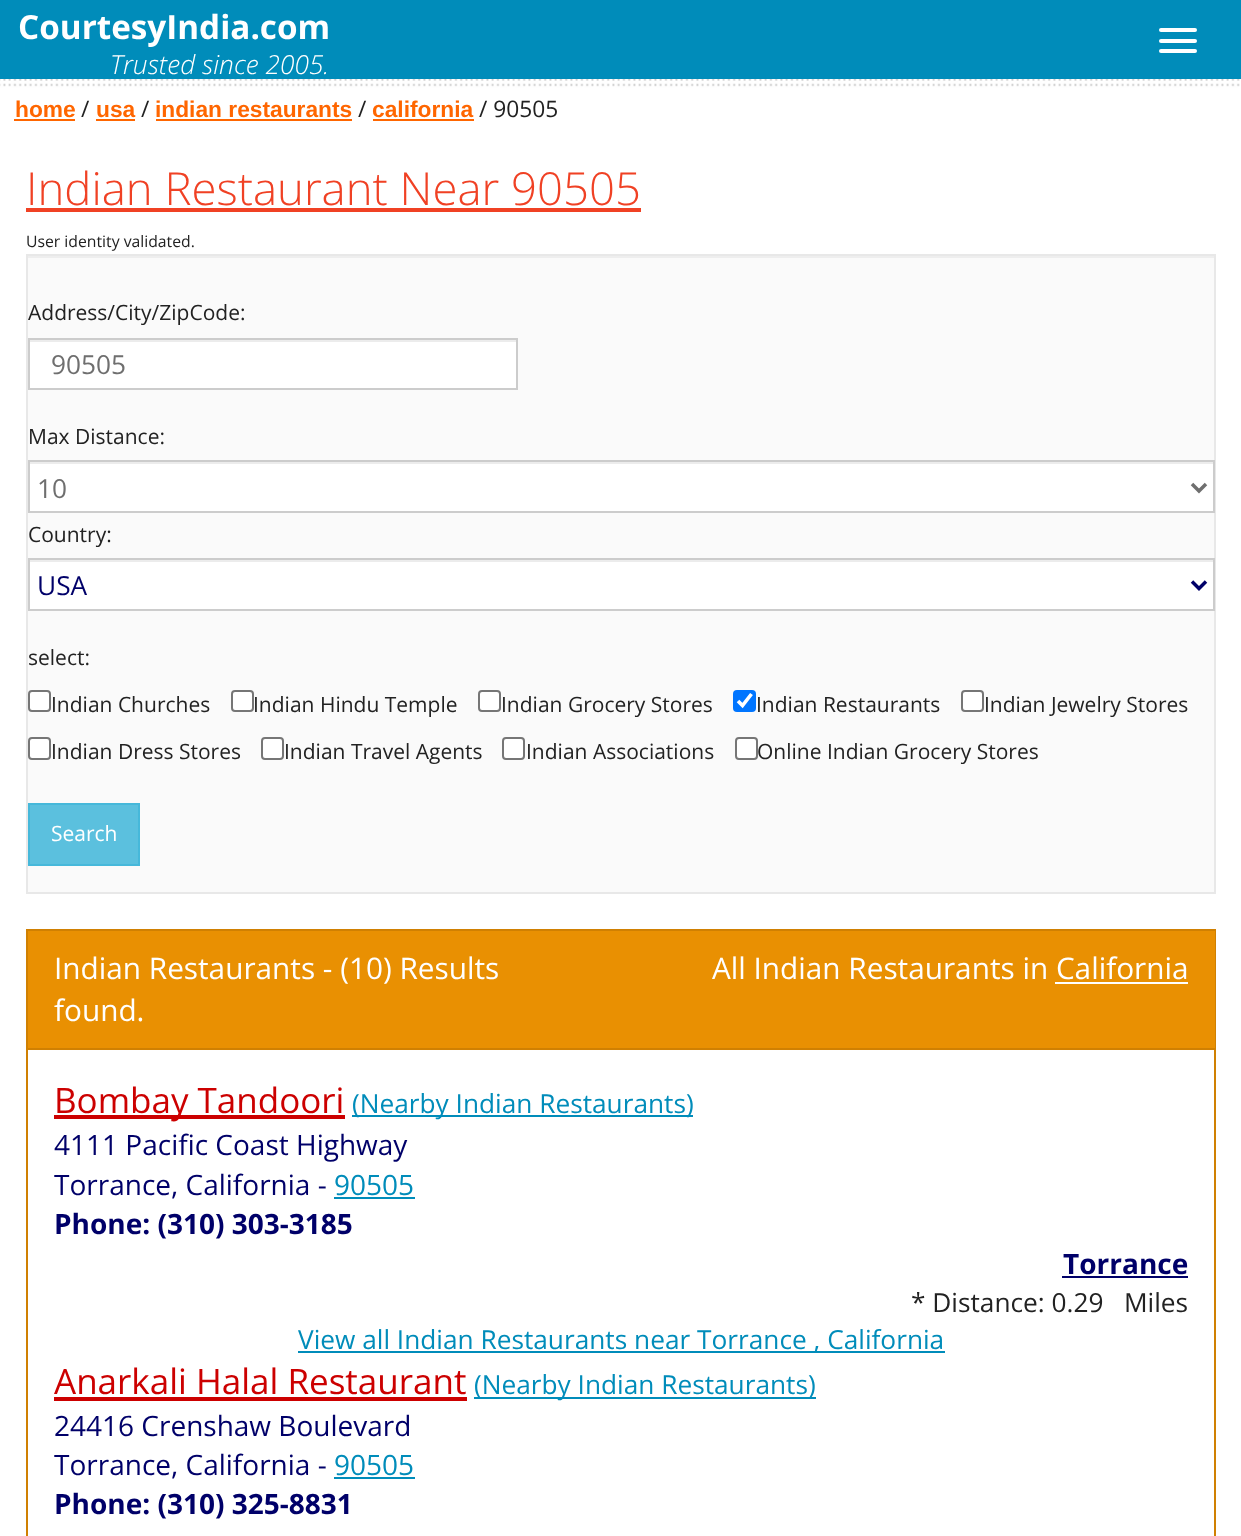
<svg xmlns="http://www.w3.org/2000/svg" width="1241" height="1536">
<style>
.a{font:bold 33.25px Open Sans;fill:#fff}
.b{font:italic 300 26.25px Open Sans;fill:#fff}
.c{font:bold 22.75px Liberation Sans;fill:#f60}
.d{font:22.75px Open Sans;fill:#222}
.e{font:300 45.5px Open Sans;fill:#f04124}
.f{font:15.75px Open Sans;fill:#222}
.g{font:21px Open Sans;fill:#222}
.h{font:26.25px Open Sans;fill:#6f6f6f}
.i{font:26.25px Open Sans;fill:#000069}
.j{font:21px Open Sans;fill:#fff}
.k{font:29.75px Open Sans;fill:#fff}
.l{font:35px Open Sans;fill:#c00}
.m{font:26.25px Open Sans;fill:#008cba}
.n{font:28px Open Sans;fill:#000069}
.o{font:28px Open Sans;fill:#008cba}
.p{font:bold 28px Open Sans;fill:#000069}
.q{font:26.25px Open Sans;fill:#222}
</style>
<rect width="100%" height="100%" fill="#fff"/>
<image href="1.png" x="0" y="79" width="1240" height="9"/>
<path fill="#008cba" d="M0 0h1241v79H0z"/>
<rect fill="#fff" x="1159" y="28" width="38" height="4" rx="2"/>
<rect fill="#fff" x="1159" y="39" width="38" height="4" rx="2"/>
<rect fill="#fff" x="1159" y="49" width="38" height="4" rx="2"/>
<path fill="#f60" d="M14 119h61v2H14z"/>
<path fill="#f60" d="M96 119h39v2H96z"/>
<path fill="#f60" d="M156 119h196v2H156z"/>
<path fill="#f60" d="M373 119h101v2H373z"/>
<path fill="#f04124" d="M26 208h615v4H26z"/>
<path fill="#fafafa" d="M28 258h1186v634H28z"/>
<path fill="#eee" d="M28 256h1187v2H28z"/>
<path fill="none" stroke="#e8e8e8" stroke-width="2" d="M27 255h1188v638H27z"/>
<path fill="#fff" d="M30 342h486v46H30z"/>
<path fill="#ececec" d="M30 340h486v2H30z"/>
<path fill="none" stroke="#ccc" stroke-width="2" d="M29 339h488v50H29z"/>
<path fill="#fff" d="M30 464h1183v47H30z"/>
<path fill="#ececec" d="M30 462h1183v2H30z"/>
<path fill="none" stroke="#ccc" stroke-width="2" d="M29 461h1185v51H29z"/>
<path fill="none" stroke="#6f6f6f" stroke-width="3.5" d="M1192 484l7 7l7-7"/>
<path fill="#fff" d="M30 562h1183v47H30z"/>
<path fill="#ececec" d="M30 560h1183v2H30z"/>
<path fill="none" stroke="#ccc" stroke-width="2" d="M29 559h1185v51H29z"/>
<path fill="none" stroke="#000069" stroke-width="3.5" d="M1192 581.5l7 7l7-7"/>
<rect fill="#fff" stroke="#767676" stroke-width="2" x="29" y="691" width="21" height="20" rx="3"/>
<rect fill="#fff" stroke="#767676" stroke-width="2" x="232" y="691" width="21" height="20" rx="3"/>
<rect fill="#fff" stroke="#767676" stroke-width="2" x="479" y="691" width="21" height="20" rx="3"/>
<rect fill="#0075ff" x="733" y="690" width="23" height="22" rx="4"/>
<path fill="none" stroke="#fff" stroke-width="3.6" d="M738 701l4.5 4.5l9-11.5"/>
<rect fill="#fff" stroke="#767676" stroke-width="2" x="962" y="691" width="21" height="20" rx="3"/>
<rect fill="#fff" stroke="#767676" stroke-width="2" x="29" y="738" width="21" height="21" rx="3"/>
<rect fill="#fff" stroke="#767676" stroke-width="2" x="262" y="738" width="21" height="21" rx="3"/>
<rect fill="#fff" stroke="#767676" stroke-width="2" x="503" y="738" width="21" height="21" rx="3"/>
<rect fill="#fff" stroke="#767676" stroke-width="2" x="736" y="738" width="21" height="21" rx="3"/>
<path fill="#5bc0de" stroke="#46b8da" stroke-width="2" d="M29 804h110v61H29z"/>
<path fill="none" stroke="#d08002" stroke-width="2" d="M27 930h1188v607H27z"/>
<path fill="#e99002" d="M28 931h1187v117H28z"/>
<path fill="#d08002" d="M28 1048h1187v2H28z"/>
<path fill="#fff" d="M1055 982h133v2H1055z"/>
<path fill="#c00" d="M54 1115h291v4H54z"/>
<path fill="#008cba" d="M352 1115h341v2H352z"/>
<path fill="#008cba" d="M334 1197h81v2H334z"/>
<path fill="#000069" d="M1062 1276h126v2H1062z"/>
<path fill="#008cba" d="M298 1351h647v2H298z"/>
<path fill="#c00" d="M54 1397h413v4H54z"/>
<path fill="#008cba" d="M474 1397h342v2H474z"/>
<path fill="#008cba" d="M334 1477h81v2H334z"/>
<text class="a" x="18" y="39">CourtesyIndia.com</text>
<text class="b" x="110" y="74">Trusted since 2005.</text>
<text class="c" x="15" y="117">home</text>
<text class="d" x="81" y="117">/</text>
<text class="c" x="96" y="117">usa</text>
<text class="d" x="141" y="117">/</text>
<text class="c" x="155" y="117">indian restaurants</text>
<text class="d" x="358" y="117">/</text>
<text class="c" x="372" y="117">california</text>
<text class="d" x="479" y="117">/ 90505</text>
<text class="e" x="26" y="205">Indian Restaurant Near 90505</text>
<text class="f" x="26" y="247">User identity validated.</text>
<text class="g" x="28" y="320">Address/City/ZipCode:</text>
<text class="h" x="51" y="374">90505</text>
<text class="g" x="28" y="444">Max Distance:</text>
<text class="h" x="37" y="498">10</text>
<text class="g" x="28" y="542">Country:</text>
<text class="i" x="37" y="595">USA</text>
<text class="g" x="28" y="665">select:</text>
<text class="g" x="51" y="712">Indian Churches</text>
<text class="g" x="253" y="712">Indian Hindu Temple</text>
<text class="g" x="501" y="712">Indian Grocery Stores</text>
<text class="g" x="756" y="712">Indian Restaurants</text>
<text class="g" x="984" y="712">Indian Jewelry Stores</text>
<text class="g" x="51" y="759">Indian Dress Stores</text>
<text class="g" x="284" y="759">Indian Travel Agents</text>
<text class="g" x="526" y="759">Indian Associations</text>
<text class="g" x="757" y="759">Online Indian Grocery Stores</text>
<text class="j" x="51" y="841">Search</text>
<text class="k" x="54" y="979">Indian Restaurants - (10) Results</text>
<text class="k" x="54" y="1021">found.</text>
<text class="k" x="712" y="979">All Indian Restaurants in California</text>
<text class="l" x="54" y="1113">Bombay Tandoori</text>
<text class="m" x="352" y="1113">(Nearby Indian Restaurants)</text>
<text class="n" x="54" y="1155">4111 Pacific Coast Highway</text>
<text class="n" x="54" y="1195">Torrance, California -</text>
<text class="o" x="334" y="1195">90505</text>
<text class="p" x="54" y="1234">Phone: (310) 303-3185</text>
<text class="p" x="1063" y="1274">Torrance</text>
<text class="q" xml:space="preserve" x="911" y="1312">* Distance: 0.29   Miles</text>
<text class="m" x="298" y="1349">View all Indian Restaurants near Torrance , California</text>
<text class="l" x="54" y="1394">Anarkali Halal Restaurant</text>
<text class="m" x="474" y="1394">(Nearby Indian Restaurants)</text>
<text class="n" x="54" y="1436">24416 Crenshaw Boulevard</text>
<text class="n" x="54" y="1475">Torrance, California -</text>
<text class="o" x="334" y="1475">90505</text>
<text class="p" x="54" y="1514">Phone: (310) 325-8831</text>
</svg>
